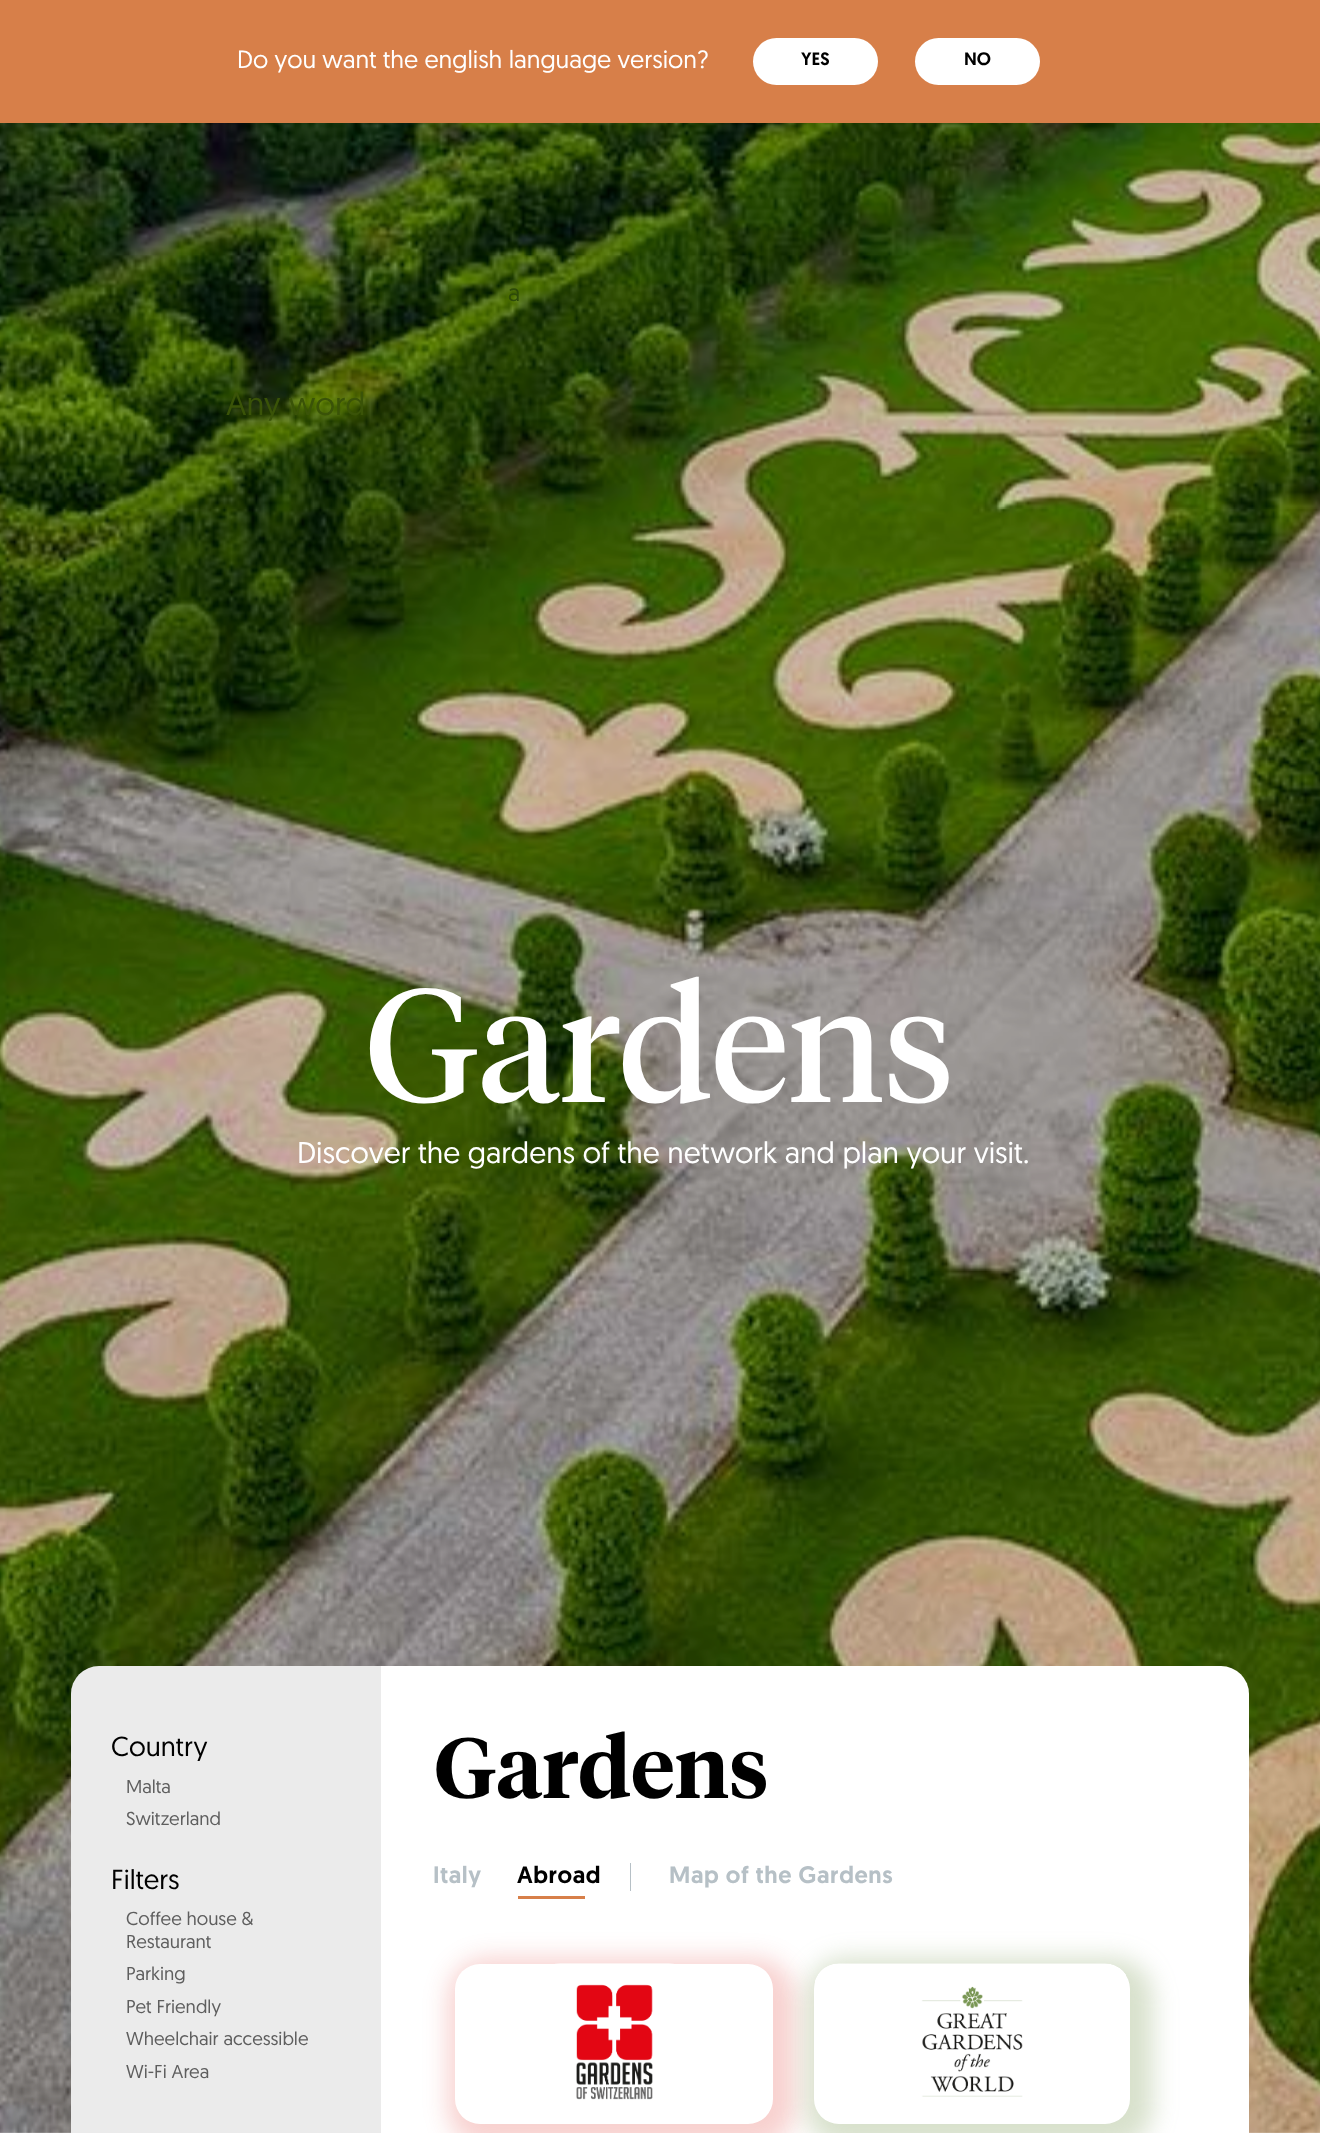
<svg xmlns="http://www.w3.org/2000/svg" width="1320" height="2133">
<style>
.a{font:25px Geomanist;fill:#fff}
.b{font:500 18px Geomanist;fill:#000}
.c{font:23.75px Geomanist;fill:#2d4a09}
.d{font:32.5px Geomanist;fill:#3a5308}
.e{font:160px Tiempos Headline;fill:#fff}
.f{font:30px Geomanist;fill:#fff}
.g{font:27.5px Geomanist;fill:#000}
.h{font:18.75px Geomanist;fill:#5e5e5e}
.i{font:600 85px Tiempos Headline;fill:#000}
.j{font:500 23.75px Geomanist;letter-spacing:0.6px;fill:#b6c0c6}
.k{font:500 23.75px Geomanist;letter-spacing:0.6px;fill:#000}
</style>
<rect width="100%" height="100%" fill="#fff"/>
<path fill="#d77f49" d="M0 0h1320v123H0z"/>
<rect fill="#fff" x="753" y="38" width="125" height="47" rx="23.5"/>
<rect fill="#fff" x="915" y="38" width="125" height="47" rx="23.5"/>
<image href="1.png" x="0" y="123" width="1320" height="2010"/>
<rect fill="#fff" x="71" y="1666" width="1178" height="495" rx="28"/>
<path fill="#00000014" d="M99 1666h282v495h-282c-15.5 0-28-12.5-28-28v-439c0-15.5 12.5-28 28-28z"/>
<path fill="#d77f49" d="M518 1896h67v3H518z"/>
<path fill="#b6c0c6" d="M630 1863h1v28H630z"/>
<rect fill="#db180d33" filter="blur(12.5px)" x="448" y="1958" width="347" height="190" rx="40"/>
<rect fill="#fff" x="455" y="1964" width="318" height="160" rx="25"/>
<image href="2.png" x="555" y="1963" width="119" height="137"/>
<rect fill="#7e9b574d" filter="blur(12.5px)" x="806" y="1958" width="347" height="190" rx="40"/>
<rect fill="#fff" x="814" y="1964" width="316" height="160" rx="25"/>
<image href="3.png" x="815" y="1963" width="311" height="134"/>
<text class="a" x="237" y="68">Do you want the english language version?</text>
<text class="b" x="801" y="65">YES</text>
<text class="b" x="964" y="65">NO</text>
<text class="c" x="508" y="301">a</text>
<text class="d" x="226" y="415">Any word</text>
<text class="e" x="365" y="1102">Gardens</text>
<text class="f" x="297" y="1163">Discover the gardens of the network and plan your visit.</text>
<text class="g" x="111" y="1756">Country</text>
<text class="h" x="126" y="1793">Malta</text>
<text class="h" x="126" y="1825">Switzerland</text>
<text class="g" x="111" y="1889">Filters</text>
<text class="h" x="126" y="1925">Coffee house &amp;</text>
<text class="h" x="126" y="1948">Restaurant</text>
<text class="h" x="126" y="1980">Parking</text>
<text class="h" x="126" y="2013">Pet Friendly</text>
<text class="h" x="126" y="2045">Wheelchair accessible</text>
<text class="h" x="126" y="2078">Wi-Fi Area</text>
<text class="i" x="434" y="1798">Gardens</text>
<text class="j" x="433" y="1883">Italy</text>
<text class="k" x="517" y="1883">Abroad</text>
<text class="j" x="669" y="1883">Map of the Gardens</text>
</svg>
